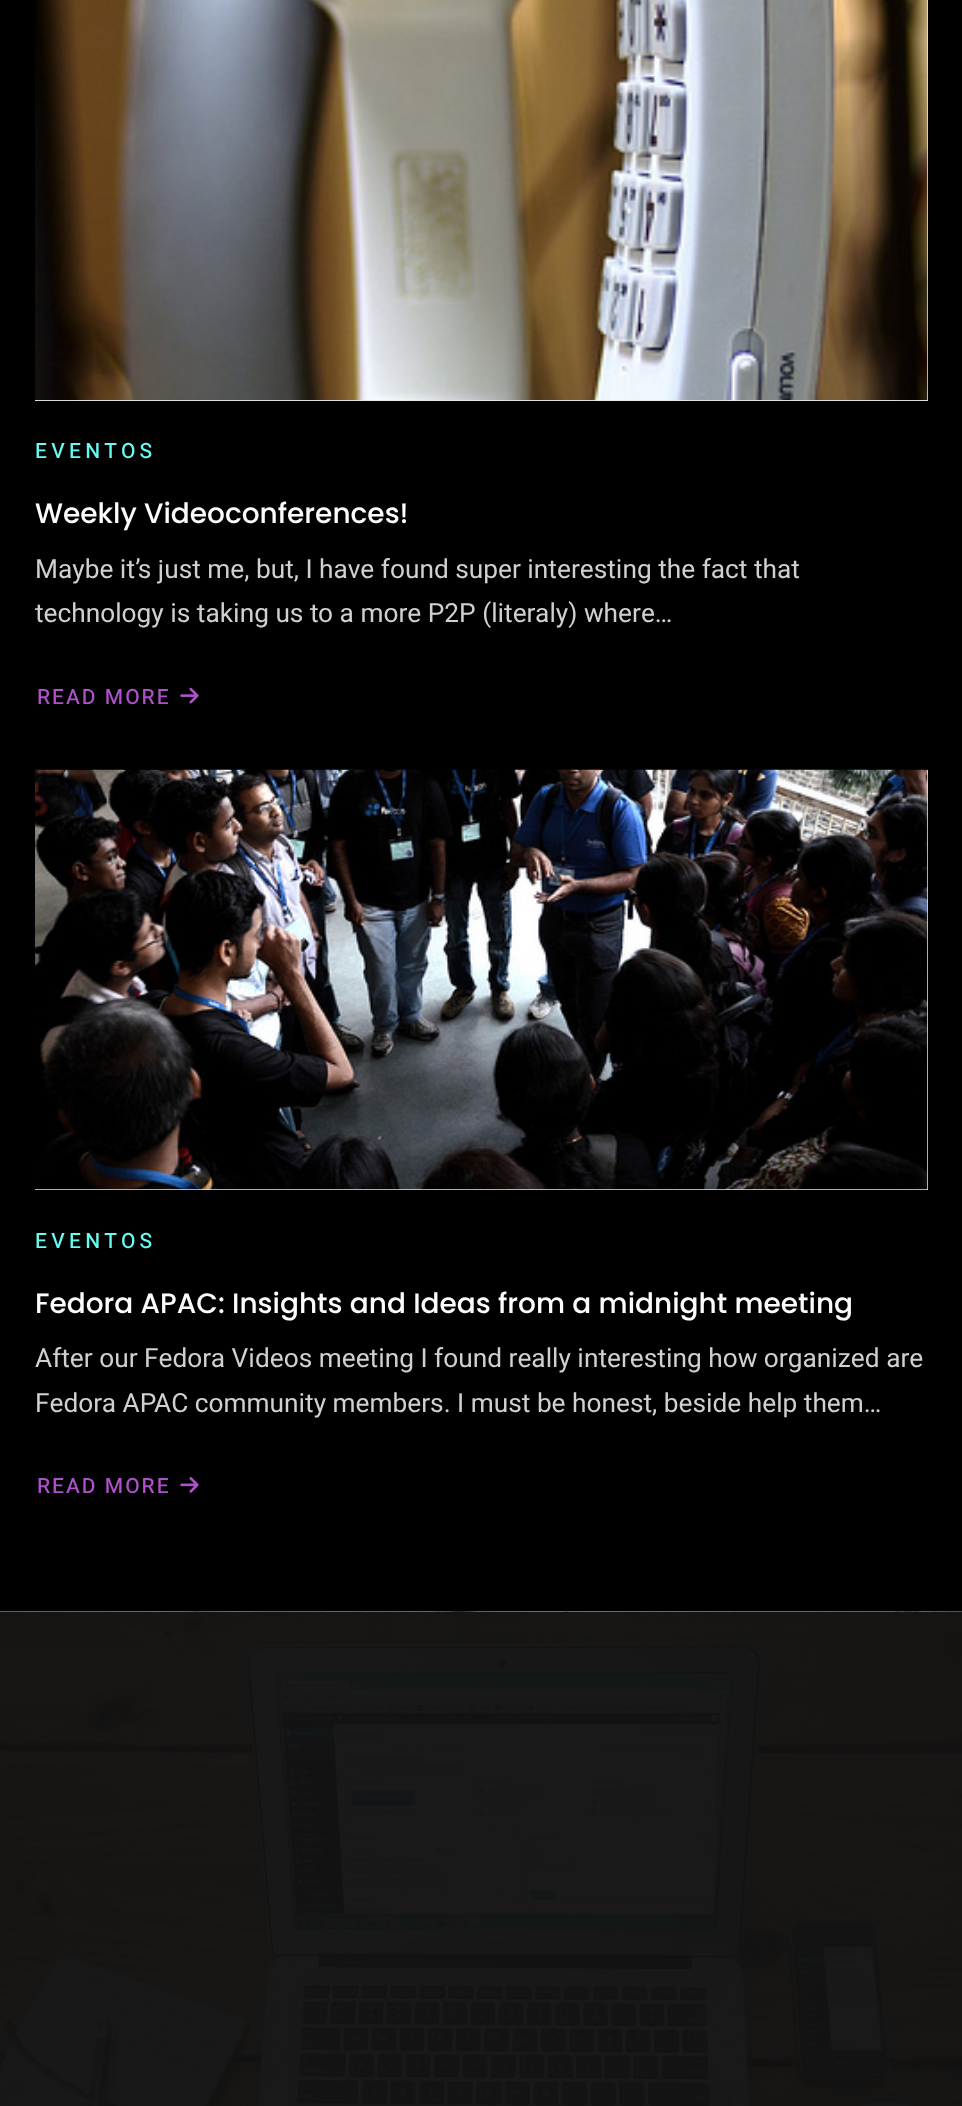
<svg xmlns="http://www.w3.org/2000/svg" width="962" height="2106">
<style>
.a{font:500 21px Heebo;letter-spacing:4.25px;fill:#66fcf1}
.b{font:500 28px Poppins;fill:#fcfcfc}
.c{font:26.25px Heebo;fill:#d0d0d0}
.d{font:500 21px Heebo;letter-spacing:2px;fill:#ae51ca}
</style>
<rect width="100%" height="100%" fill="#000001"/>
<path fill="#eaeaeb" d="M35 0h893v401H35z"/>
<image href="1.png" x="35" y="0" width="893" height="401"/>
<image href="2.png" x="180" y="687" width="19" height="17"/>
<path fill="#eaeaeb" d="M35 770h893v420H35z"/>
<image href="3.png" x="35" y="769" width="893" height="421"/>
<image href="4.png" x="180" y="1477" width="19" height="16"/>
<image href="5.png" x="0" y="1611" width="962" height="495"/>
<text class="a" x="35" y="458">EVENTOS</text>
<text class="b" x="35" y="523">Weekly Videoconferences!</text>
<text class="c" x="35" y="578">Maybe it’s just me, but, I have found super interesting the fact that</text>
<text class="c" x="35" y="622">technology is taking us to a more P2P (literaly) where…</text>
<text class="d" x="37" y="704">READ MORE</text>
<text class="a" x="35" y="1248">EVENTOS</text>
<text class="b" x="35" y="1313">Fedora APAC: Insights and Ideas from a midnight meeting</text>
<text class="c" x="35" y="1367">After our Fedora Videos meeting I found really interesting how organized are</text>
<text class="c" x="35" y="1412">Fedora APAC community members. I must be honest, beside help them…</text>
<text class="d" x="37" y="1493">READ MORE</text>
</svg>
